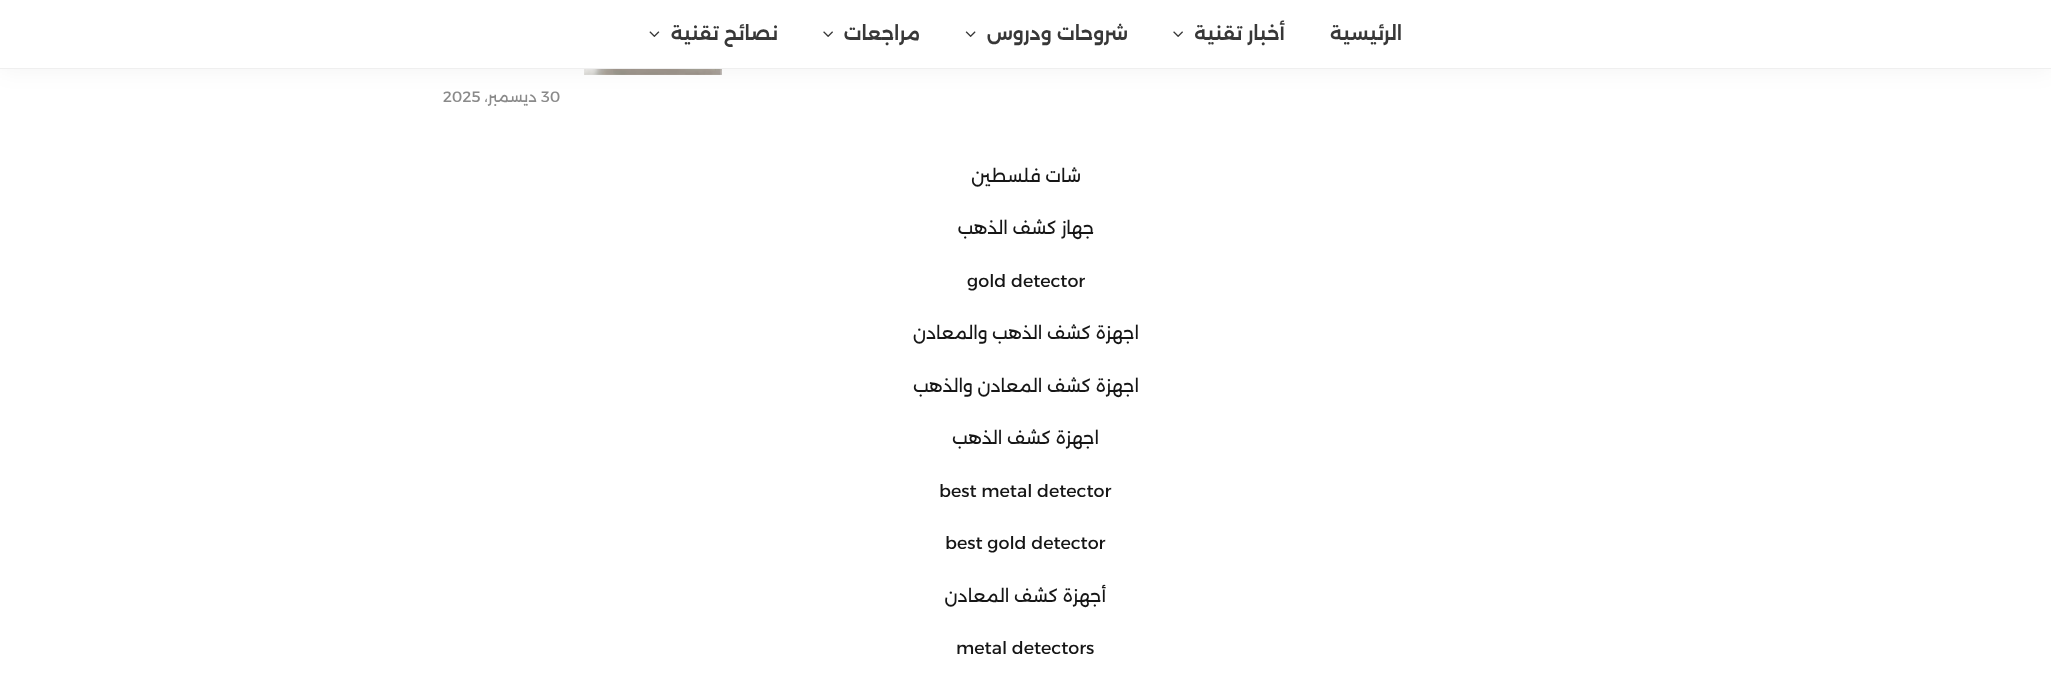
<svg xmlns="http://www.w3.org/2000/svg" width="2051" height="682">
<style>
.a{font:600 18.75px Alexandria;direction:rtl;fill:#383838}
.b{font:15px Alexandria;fill:#8a8a8a}
.c{font:15px Alexandria;direction:rtl;fill:#8a8a8a}
.d{font:17.5px Alexandria;direction:rtl;fill:#161616}
.e{font:17.5px Alexandria;fill:#161616}
</style>
<rect width="100%" height="100%" fill="#fff"/>
<image href="4.png" x="584" y="69" width="138" height="6"/>
<path fill="#0000000d" filter="blur(12.5px)" d="M0 0h2051v69H0z"/>
<path fill="#fff" d="M0 0h2051v68H0z"/>
<path fill="#efefef" d="M0 68h2051v1H0z"/>
<image href="1.png" x="1173" y="31" width="10" height="6"/>
<image href="2.png" x="965" y="31" width="11" height="6"/>
<image href="1.png" x="823" y="31" width="10" height="6"/>
<image href="3.png" x="649" y="31" width="11" height="6"/>
<text class="a" x="1402" y="40">الرئيسية</text>
<text class="a" x="1285" y="40">أخبار تقنية</text>
<text class="a" x="1128" y="40">شروحات ودروس</text>
<text class="a" x="920" y="40">مراجعات</text>
<text class="a" x="778" y="40">نصائح تقنية</text>
<text class="b" x="541" y="102">30</text>
<text class="c" x="537" y="102">ديسمبر،</text>
<text class="b" x="443" y="102">2025</text>
<text class="d" x="1081" y="182">شات فلسطين</text>
<text class="d" x="1094" y="234">جهاز كشف الذهب</text>
<text class="e" x="967" y="287">gold detector</text>
<text class="d" x="1139" y="339">اجهزة كشف الذهب والمعادن</text>
<text class="d" x="1139" y="392">اجهزة كشف المعادن والذهب</text>
<text class="d" x="1099" y="444">اجهزة كشف الذهب</text>
<text class="e" x="939" y="497">best metal detector</text>
<text class="e" x="945" y="549">best gold detector</text>
<text class="d" x="1106" y="602">أجهزة كشف المعادن</text>
<text class="e" x="956" y="654">metal detectors</text>
</svg>
